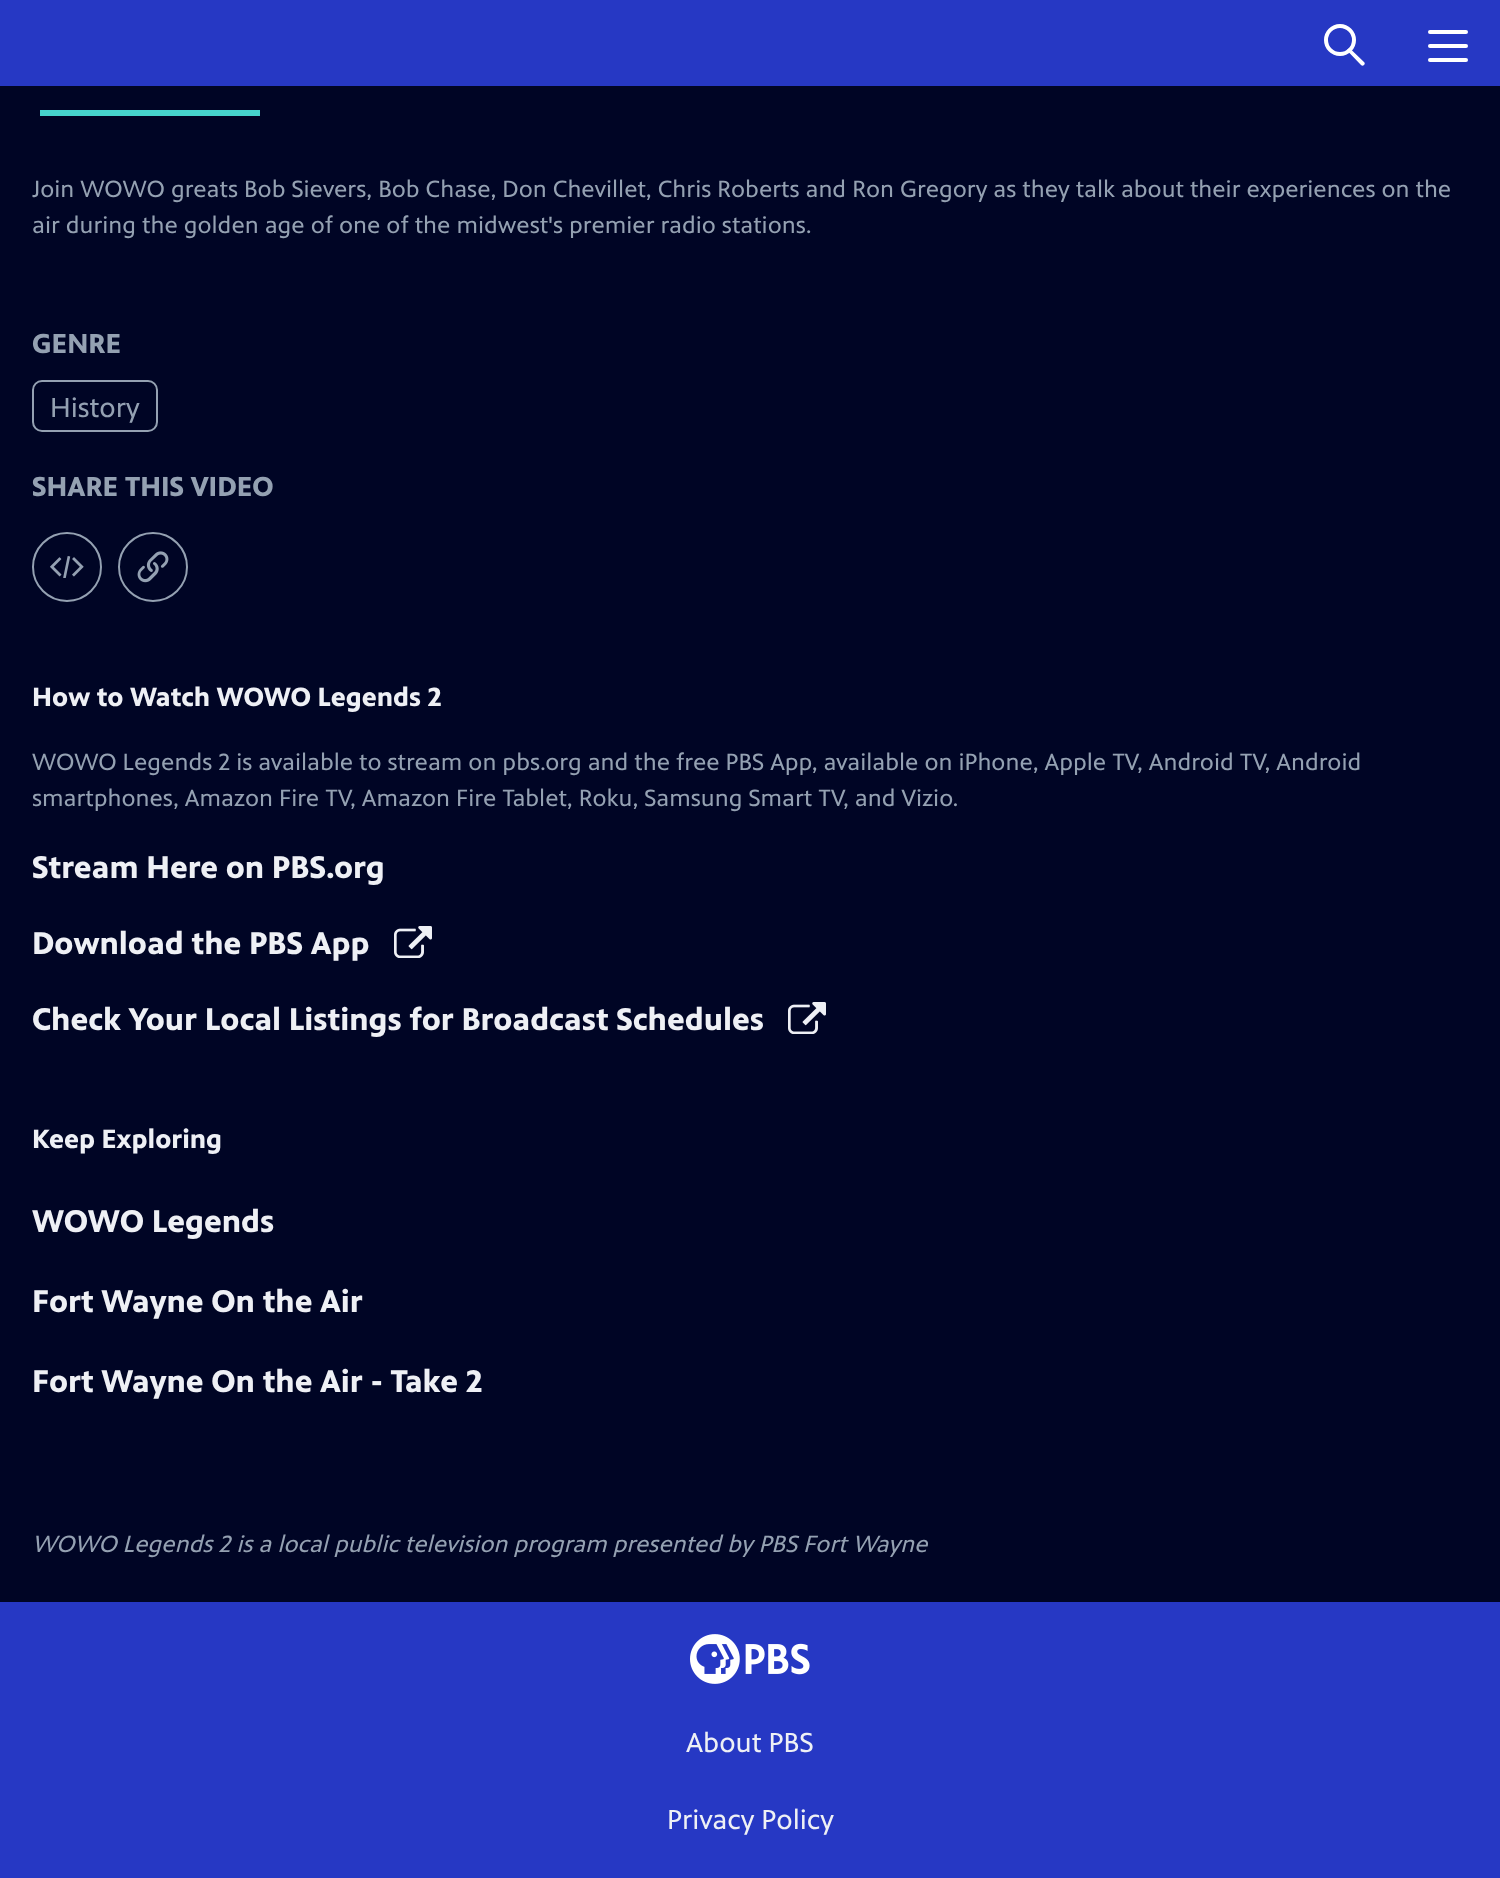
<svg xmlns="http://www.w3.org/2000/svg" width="1500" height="1878">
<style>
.a{font:24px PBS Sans;fill:#94a1b2}
.b{font:bold 28px PBS Sans;fill:#94a1b2}
.c{font:28px PBS Sans;fill:#94a1b2}
.d{font:bold 27px PBS Sans;fill:#eef0f5}
.e{font:bold 32px PBS Sans;fill:#eef0f5}
.f{font:italic 24px PBS Sans;fill:#94a1b2}
.g{font:28px PBS Sans;fill:#eef0f5}
</style>
<rect width="100%" height="100%" fill="#000525"/>
<path fill="#2638c4" d="M0 0h1500v86H0z"/>
<circle fill="none" stroke="#fff" stroke-width="4" cx="1340" cy="40" r="14"/>
<path fill="#fff" d="M1361 65l-13-13.5c-1-.5-1-2 0-2.5c.5-1 2-1 2.5 0l13.5 13c1 1 1 2 0 3c-1 1-2 1-3 0z"/>
<rect fill="#fff" x="1428" y="30" width="40" height="4" rx="2"/>
<rect fill="#fff" x="1428" y="44" width="40" height="4" rx="2"/>
<rect fill="#fff" x="1428" y="58" width="40" height="4" rx="2"/>
<path fill="#46d4cd" d="M40 110h220v6H40z"/>
<rect fill="none" stroke="#94a1b2" stroke-width="2" x="33" y="381" width="124" height="50" rx="9"/>
<circle fill="none" stroke="#94a1b2" stroke-width="2" cx="67" cy="567" r="34"/>
<image href="1.png" x="50" y="556" width="34" height="22"/>
<circle fill="none" stroke="#94a1b2" stroke-width="2" cx="153" cy="567" r="34"/>
<image href="2.png" x="137" y="551" width="32" height="32"/>
<image href="3.png" x="394" y="926" width="38" height="32"/>
<image href="3.png" x="788" y="1002" width="38" height="32"/>
<path fill="#2638c4" d="M0 1602h1500v276H0z"/>
<image href="4.png" x="690" y="1634" width="120" height="50"/>
<text class="a" x="32" y="197">Join WOWO greats Bob Sievers, Bob Chase, Don Chevillet, Chris Roberts and Ron Gregory as they talk about their experiences on the</text>
<text class="a" x="32" y="233">air during the golden age of one of the midwest's premier radio stations.</text>
<text class="b" x="32" y="353">GENRE</text>
<text class="c" x="50" y="417">History</text>
<text class="b" x="32" y="496">SHARE THIS VIDEO</text>
<text class="d" x="32" y="706">How to Watch WOWO Legends 2</text>
<text class="a" x="32" y="770">WOWO Legends 2 is available to stream on pbs.org and the free PBS App, available on iPhone, Apple TV, Android TV, Android</text>
<text class="a" x="32" y="806">smartphones, Amazon Fire TV, Amazon Fire Tablet, Roku, Samsung Smart TV, and Vizio.</text>
<text class="e" x="32" y="878">Stream Here on PBS.org</text>
<text class="e" x="32" y="954">Download the PBS App</text>
<text class="e" x="32" y="1030">Check Your Local Listings for Broadcast Schedules</text>
<text class="d" x="32" y="1148">Keep Exploring</text>
<text class="e" x="32" y="1232">WOWO Legends</text>
<text class="e" x="32" y="1312">Fort Wayne On the Air</text>
<text class="e" x="32" y="1392">Fort Wayne On the Air - Take 2</text>
<text class="f" x="32" y="1552">WOWO Legends 2 is a local public television program presented by PBS Fort Wayne</text>
<text class="g" x="686" y="1752">About PBS</text>
<text class="g" x="667" y="1829">Privacy Policy</text>
</svg>
